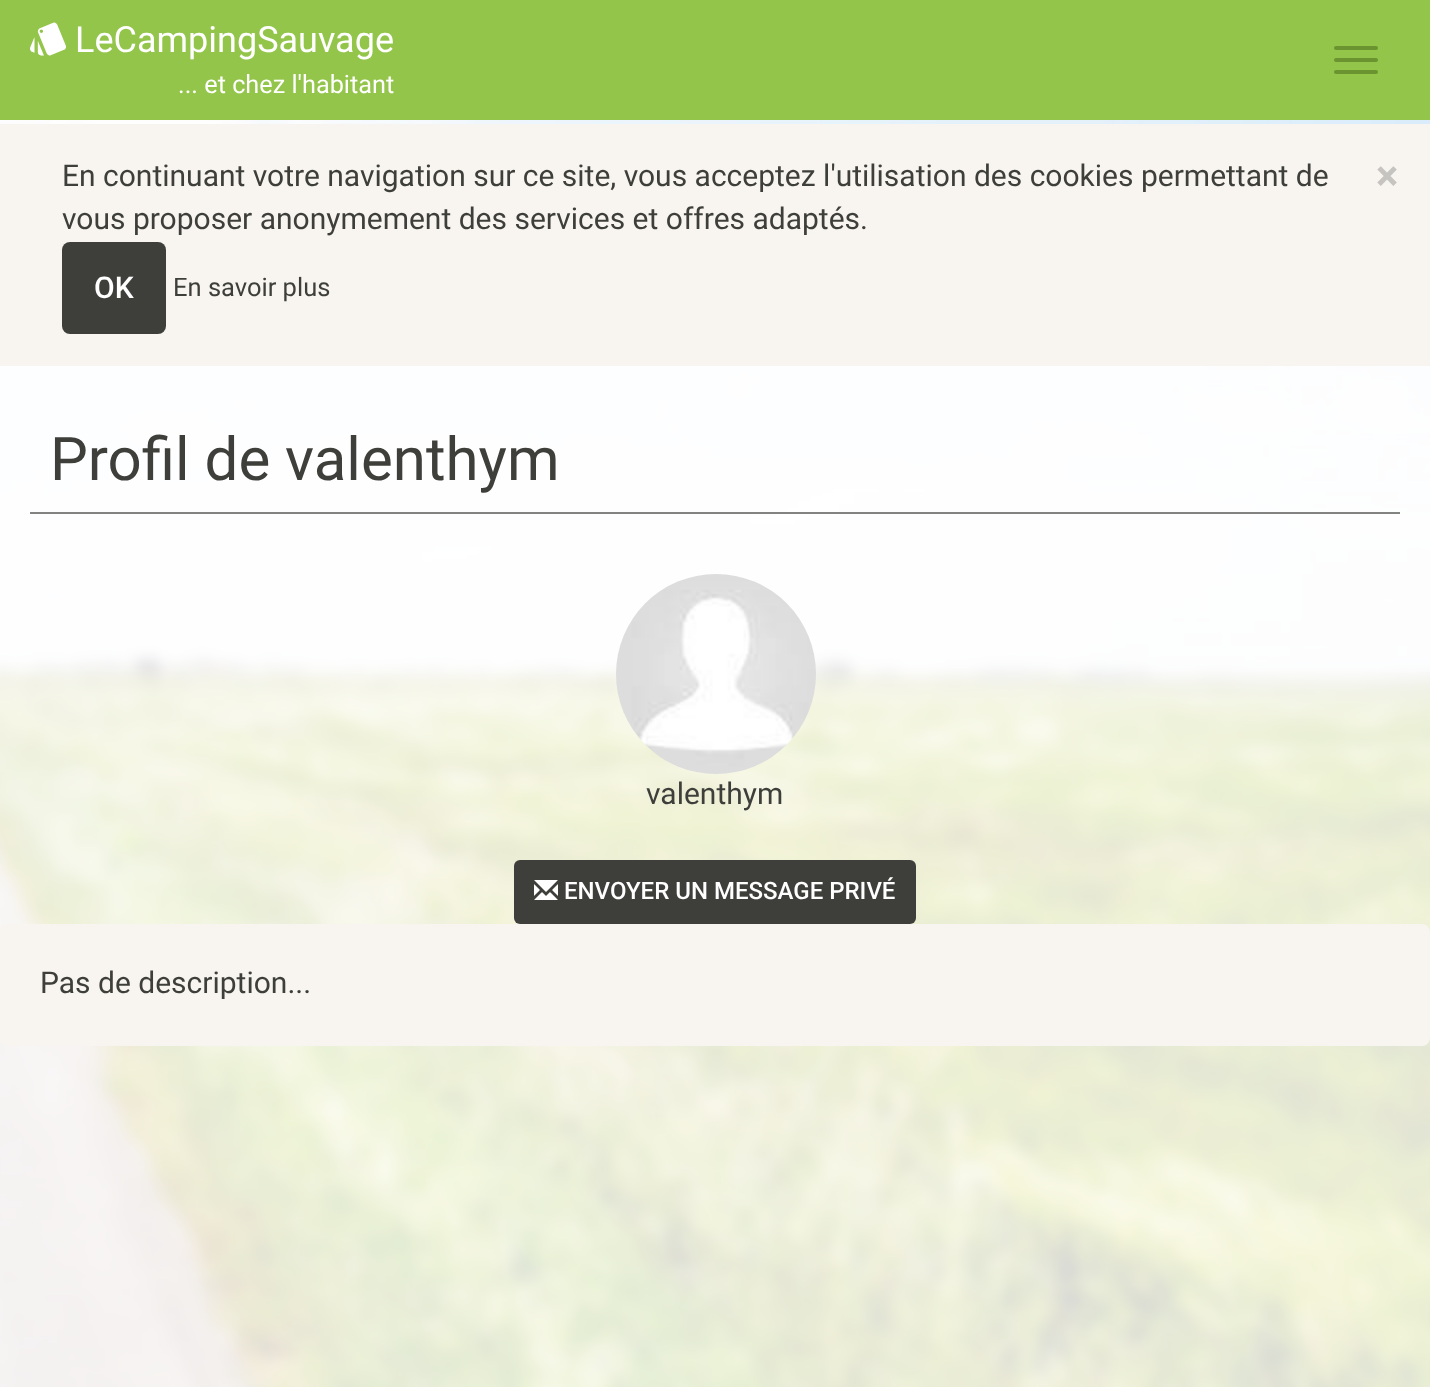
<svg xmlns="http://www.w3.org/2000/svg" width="1430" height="1387">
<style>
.a{font:36px 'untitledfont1';fill:#fff}
.b{font:36px Roboto;fill:#fff}
.c{font:25.25px Roboto;fill:#fff}
.d{font:30px Roboto;fill:#3e3f3a}
.e{font:bold 42px Roboto;fill:#c6c4c0}
.f{font:500 30px Roboto;fill:#fff}
.g{font:25.5px Roboto;fill:#3e3f3a}
.h{font:60px Roboto;fill:#3e3f3a}
.i{font:500 24px Roboto;fill:#fff}
</style>
<rect width="100%" height="100%" fill="#fff"/>
<path fill="#93c54b" d="M0 0h1430v120H0z"/>
<rect fill="#6b9430" x="1334" y="46" width="44" height="4" rx="2"/>
<rect fill="#6b9430" x="1334" y="58" width="44" height="4" rx="2"/>
<rect fill="#6b9430" x="1334" y="70" width="44" height="4" rx="2"/>
<image href="1.png" x="0" y="120" width="1430" height="1267"/>
<path fill="#f8f5f0" d="M0 124h1430v242H0z"/>
<rect fill="#3e3f3a" x="62" y="242" width="104" height="92" rx="8"/>
<path fill="#ffffffd4" d="M0 366h1430v1021H0z"/>
<path fill="#838382" d="M30 512h1370v2H30z"/>
<image href="2.png" x="616" y="574" width="200" height="200"/>
<rect fill="#3e3f3a" x="514" y="860" width="402" height="64" rx="6"/>
<image href="3.png" x="534" y="880" width="24" height="20"/>
<rect fill="#f8f5f0" y="924" width="1430" height="122" rx="8"/>
<text class="a" x="30" y="57">&gt;</text>
<text class="b" x="75" y="52">LeCampingSauvage</text>
<text class="c" x="178" y="93">... et chez l'habitant</text>
<text class="d" x="62" y="186">En continuant votre navigation sur ce site, vous acceptez l'utilisation des cookies permettant de</text>
<text class="d" x="62" y="229">vous proposer anonymement des services et offres adaptés.</text>
<text class="e" x="1376" y="190">×</text>
<text class="f" x="94" y="298">OK</text>
<text class="g" x="173" y="296">En savoir plus</text>
<text class="h" x="50" y="480">Profil de valenthym</text>
<text class="d" x="646" y="804">valenthym</text>
<text class="i" x="564" y="899">ENVOYER UN MESSAGE PRIVÉ</text>
<text class="d" x="40" y="993">Pas de description...</text>
</svg>
